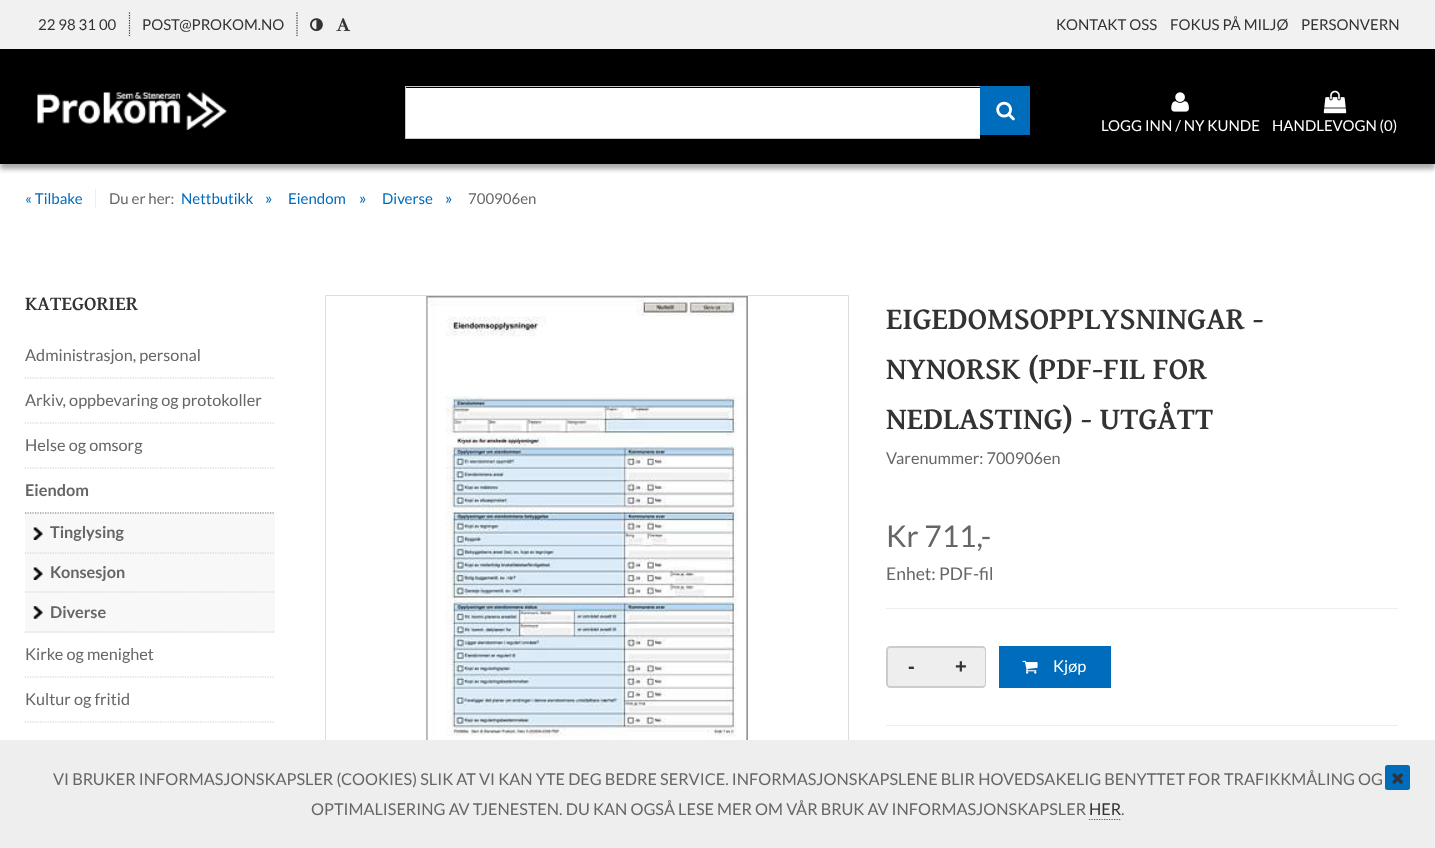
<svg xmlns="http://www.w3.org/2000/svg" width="1435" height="848">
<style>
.a{font:15px Lato;fill:#333}
.b{font:16.25px Lato;fill:#666}
.c{font:16.25px Lato;fill:#333}
.d{font:15px Lato;fill:#fff}
.e{font:15px Lato;fill:#006cbc}
.f{font:15px Lato;fill:#666}
.g{font:16.25px Lato;fill:#006cbc}
.h{font:bold 20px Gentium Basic;fill:#333}
.i{font:bold 16.25px Lato;fill:#666}
.j{font:bold 31.25px Gentium Basic;fill:#333}
.k{font:30px Lato;fill:#666}
.l{font:17.5px Lato;fill:#666}
.m{font:bold 20px Liberation Sans;fill:#333}
.n{font:16.25px Lato;fill:#fff}
</style>
<rect width="100%" height="100%" fill="#fff"/>
<path fill="#a8a8a8" filter="blur(2.5px)" d="M0 5h1435v164H0z"/>
<path fill="#f1f1f1" d="M0 0h1435v49H0z"/>
<path fill="none" stroke="#333" stroke-width="1.2" stroke-dasharray="1.25 1.25" d="M129.5 12.5v23.5"/>
<path fill="none" stroke="#333" stroke-width="1.2" stroke-dasharray="1.25 1.25" d="M297 12.5v23.5"/>
<image href="1.png" x="310" y="18" width="13" height="14"/>
<image href="2.png" x="336" y="18" width="15" height="14"/>
<path fill="none" stroke="#ddd" d="M325.5 295.5h523v455H325.5z"/>
<path fill="#eee" d="M0 740h1435v108H0z"/>
<path fill="none" stroke="#006cbc" stroke-width="1.2" stroke-dasharray="1.25 1.25" d="M1089 819.5h32"/>
<rect fill="#006cbc" x="1385" y="765" width="25" height="25" rx="2.5"/>
<image href="3.png" x="1392" y="773" width="11" height="11"/>
<path fill="#000" d="M0 49h1435v115H0z"/>
<image href="4.png" x="37" y="92" width="190" height="38"/>
<path fill="#fff" d="M406 88h574v50H406z"/>
<path fill="#c9c9c9" d="M405 86h575v1H405z"/>
<path fill="#c9c9c9" d="M405 138h575v1H405z"/>
<path fill="#c9c9c9" d="M405 86h1v53H405z"/>
<path fill="#006cbc" d="M980 86h50v49H980z"/>
<image href="5.png" x="996" y="101" width="19" height="20"/>
<image href="6.png" x="1171" y="92" width="18" height="20"/>
<image href="7.png" x="1323" y="90" width="24" height="24"/>
<path fill="#eee" d="M95 189h1v19H95z"/>
<path fill="none" stroke="#ccc" stroke-width="1.2" stroke-dasharray="1.25 1.25" d="M25 378h250"/>
<path fill="none" stroke="#ccc" stroke-width="1.2" stroke-dasharray="1.25 1.25" d="M25 423h250"/>
<path fill="none" stroke="#ccc" stroke-width="1.2" stroke-dasharray="1.25 1.25" d="M25 468h250"/>
<path fill="none" stroke="#666" stroke-width="1.2" stroke-dasharray="1.25 1.25" d="M25 513h250"/>
<path fill="#f8f8f8" d="M25 514h250v119H25z"/>
<image href="8.png" x="33" y="527" width="10" height="13"/>
<path fill="none" stroke="#ccc" stroke-width="1.2" stroke-dasharray="1.25 1.25" d="M25 553h250"/>
<image href="8.png" x="33" y="567" width="10" height="13"/>
<path fill="none" stroke="#ccc" stroke-width="1.2" stroke-dasharray="1.25 1.25" d="M25 592h250"/>
<image href="9.png" x="33" y="606" width="10" height="13"/>
<path fill="none" stroke="#ccc" stroke-width="1.2" stroke-dasharray="1.25 1.25" d="M25 632h250"/>
<path fill="none" stroke="#ccc" stroke-width="1.2" stroke-dasharray="1.25 1.25" d="M25 677h250"/>
<path fill="none" stroke="#ccc" stroke-width="1.2" stroke-dasharray="1.25 1.25" d="M25 722h250"/>
<image href="10.png" x="426" y="296" width="322" height="444"/>
<path fill="#eee" d="M886 608h512v1H886z"/>
<path fill="#eee" d="M890.5 648h45.5v38h-45.5c-1.5 0-2.5-1-2.5-2.5v-33c0-1.5 1-2.5 2.5-2.5z"/>
<path fill="#ccc" fill-rule="evenodd" d="M890 646h46v42h-46c-2 0-4-2-4-4v-34c0-2 2-4 4-4zm0 2h46v38h-46c-1 0-2-1-2-2v-34c0-1 1-2 2-2z"/>
<path fill="#eee" d="M936 648h46.5c1.5 0 2.5 1 2.5 2.5v33c0 1.5-1 2.5-2.5 2.5h-46.5z"/>
<path fill="#ccc" fill-rule="evenodd" d="M936 646h46c3 0 4 2 4 4v34c0 2-1 4-4 4h-46zm0 2h46c2 0 3 1 3 2v34c0 1-1 2-3 2h-46z"/>
<path fill="#006cbc" d="M999 646h112v42H999z"/>
<image href="11.png" x="1022" y="660" width="16" height="14"/>
<path fill="#eee" d="M886 725h512v1H886z"/>
<text class="a" x="1056" y="30">KONTAKT OSS</text>
<text class="a" x="1170" y="30">FOKUS PÅ MILJØ</text>
<text class="a" x="1301" y="30">PERSONVERN</text>
<text class="a" x="38" y="30">22 98 31 00</text>
<text class="a" x="142" y="30">POST@PROKOM.NO</text>
<text class="b" x="53" y="785">VI BRUKER INFORMASJONSKAPSLER (COOKIES) SLIK AT VI KAN YTE DEG BEDRE SERVICE. INFORMASJONSKAPSLENE BLIR HOVEDSAKELIG BENYTTET FOR TRAFIKKMÅLING OG</text>
<text class="b" x="311" y="815">OPTIMALISERING AV TJENESTEN. DU KAN OGSÅ LESE MER OM VÅR BRUK AV INFORMASJONSKAPSLER</text>
<text class="c" x="1089" y="815">HER</text>
<text class="b" x="1121" y="815">.</text>
<text class="d" x="1101" y="131">LOGG INN / NY KUNDE</text>
<text class="d" x="1272" y="131">HANDLEVOGN (0)</text>
<text class="e" x="25" y="204">« Tilbake</text>
<text class="f" x="109" y="204">Du er her:</text>
<text class="e" x="181" y="204">Nettbutikk</text>
<text class="g" x="265" y="204">»</text>
<text class="e" x="288" y="204">Eiendom</text>
<text class="g" x="359" y="204">»</text>
<text class="e" x="382" y="204">Diverse</text>
<text class="g" x="445" y="204">»</text>
<text class="f" x="468" y="204">700906en</text>
<text class="h" x="25" y="310">KATEGORIER</text>
<text class="b" x="25" y="361">Administrasjon, personal</text>
<text class="b" x="25" y="406">Arkiv, oppbevaring og protokoller</text>
<text class="b" x="25" y="451">Helse og omsorg</text>
<text class="i" x="25" y="496">Eiendom</text>
<text class="i" x="50" y="538">Tinglysing</text>
<text class="i" x="50" y="578">Konsesjon</text>
<text class="i" x="50" y="618">Diverse</text>
<text class="b" x="25" y="660">Kirke og menighet</text>
<text class="b" x="25" y="705">Kultur og fritid</text>
<text class="j" x="886" y="329">EIGEDOMSOPPLYSNINGAR -</text>
<text class="j" x="886" y="379">NYNORSK (PDF-FIL FOR</text>
<text class="j" x="886" y="429">NEDLASTING) - UTGÅTT</text>
<text class="b" x="886" y="464">Varenummer: 700906en</text>
<text class="k" x="886" y="547">Kr 711,-</text>
<text class="l" x="886" y="580">Enhet: PDF-fil</text>
<text class="m" x="908" y="673">-</text>
<text class="m" x="955" y="673">+</text>
<text class="n" x="1053" y="672">Kjøp</text>
</svg>
